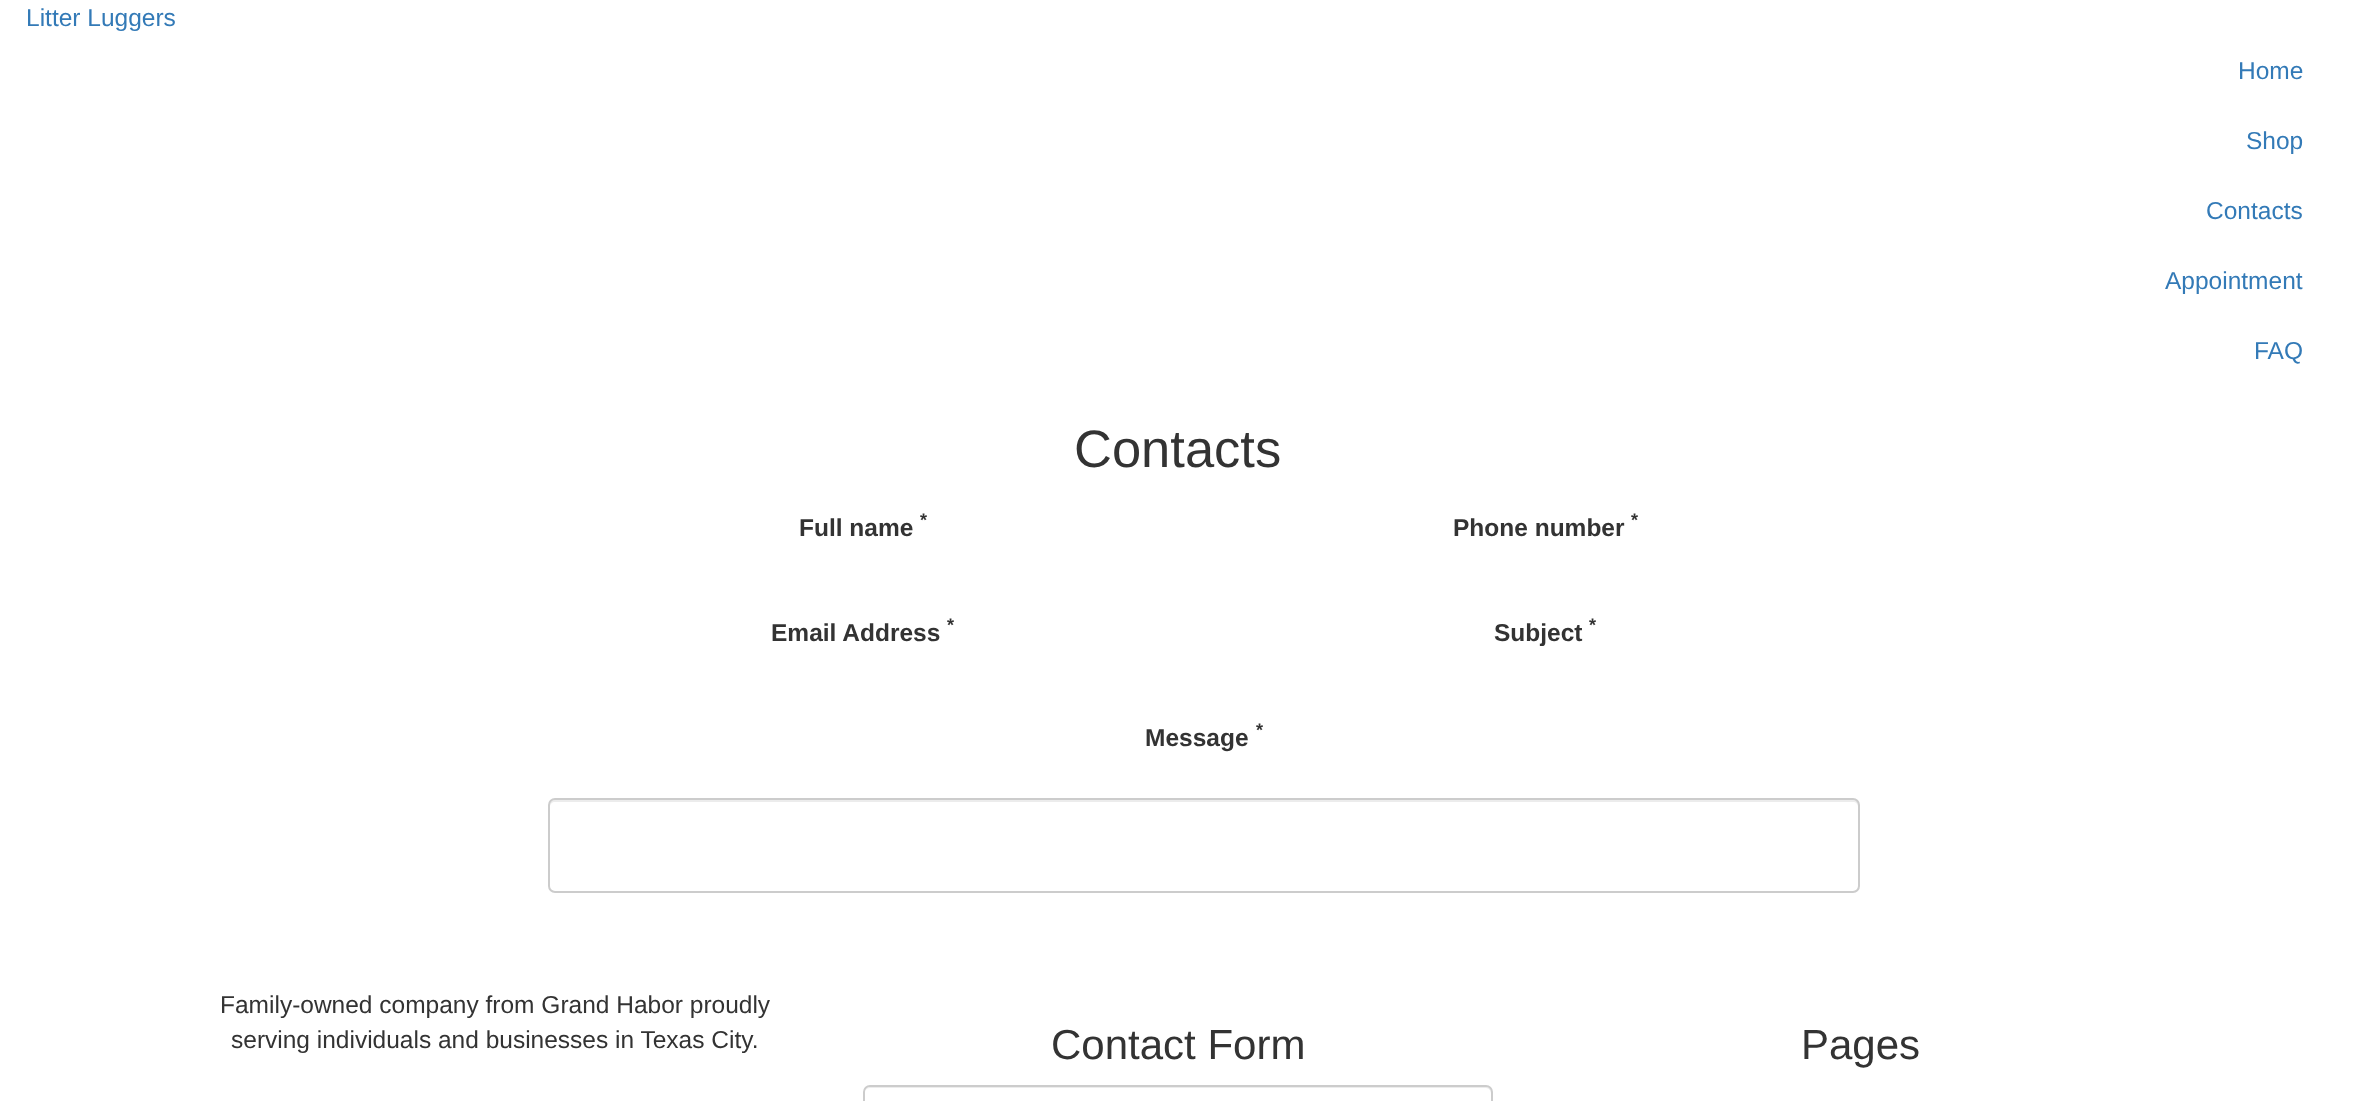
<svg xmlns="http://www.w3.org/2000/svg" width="2354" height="1101">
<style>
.a{font:24.5px Liberation Sans;fill:#337ab7}
.b{font:52.5px Liberation Sans;fill:#333}
.c{font:bold 18px Liberation Sans;fill:#333}
.d{font:bold 24.5px Liberation Sans;fill:#333}
.e{font:24.5px Liberation Sans;fill:#333}
.f{font:42px Liberation Sans;fill:#333}
</style>
<rect width="100%" height="100%" fill="#fff"/>
<path fill="#ececec" d="M555 802h1298c3 0 5 2 5 5v80l-1 3c1-1 2-3 2-4v-81c0-3-2-5-5-5h-1299c-3 0-5 2-5 5v2c0-3 2-5 5-5z"/>
<rect fill="none" stroke="#ccc" stroke-width="2" x="549" y="799" width="1310" height="93" rx="6"/>
<path fill="#ececec" d="M870 1088h616c3 0 5 3 5 6v-2c0-3-2-5-5-5h-616c-2 0-4 2-5 4c1-2 3-3 5-3z"/>
<rect fill="none" stroke="#ccc" stroke-width="2" x="864" y="1086" width="628" height="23" rx="6"/>
<text class="a" x="26" y="26">Litter Luggers</text>
<text class="a" x="2238" y="79">Home</text>
<text class="a" x="2246" y="149">Shop</text>
<text class="a" x="2206" y="219">Contacts</text>
<text class="a" x="2165" y="289">Appointment</text>
<text class="a" x="2254" y="359">FAQ</text>
<text class="b" x="1074" y="467">Contacts</text>
<text class="c" x="920" y="526">*</text>
<text class="d" x="799" y="536">Full name</text>
<text class="c" x="1631" y="526">*</text>
<text class="d" x="1453" y="536">Phone number</text>
<text class="c" x="947" y="631">*</text>
<text class="d" x="771" y="641">Email Address</text>
<text class="c" x="1589" y="631">*</text>
<text class="d" x="1494" y="641">Subject</text>
<text class="c" x="1256" y="736">*</text>
<text class="d" x="1145" y="746">Message</text>
<text class="e" x="220" y="1013">Family-owned company from Grand Habor proudly</text>
<text class="e" x="231" y="1048">serving individuals and businesses in Texas City.</text>
<text class="f" x="1051" y="1059">Contact Form</text>
<text class="f" x="1801" y="1059">Pages</text>
</svg>
